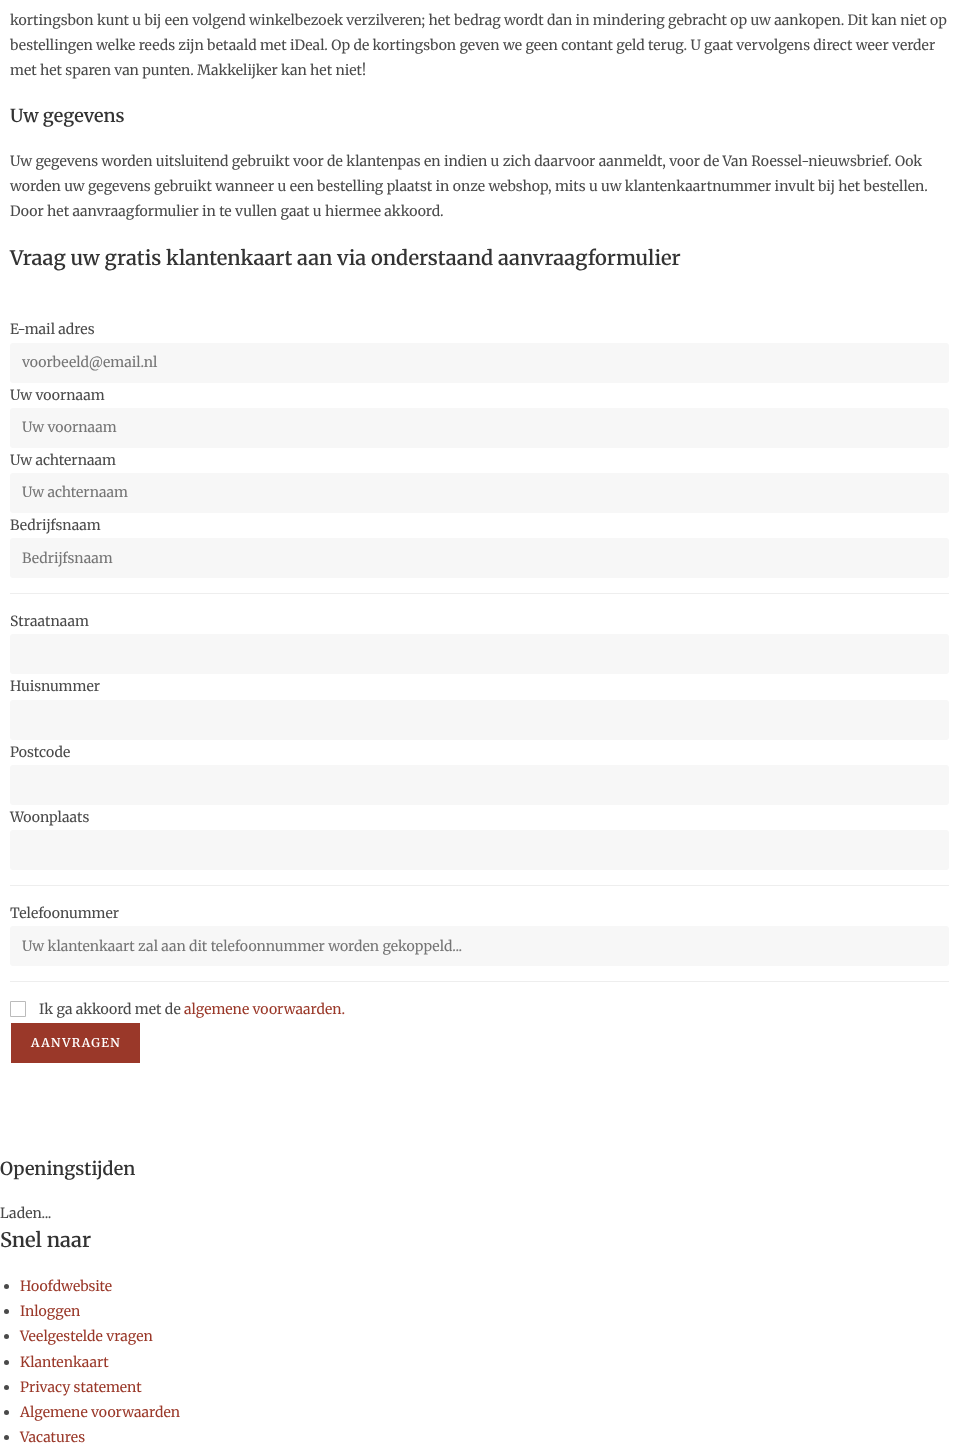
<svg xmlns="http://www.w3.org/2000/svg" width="959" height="1456">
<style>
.a{font:14px Merriweather;fill:#4a4a4a}
.b{font:600 18px Merriweather;fill:#333}
.c{font:600 20px Merriweather;fill:#333}
.d{font:14px Merriweather;fill:#757575}
.e{font:14px Merriweather;fill:#9a3829}
.f{font:600 12px Merriweather;letter-spacing:1.25px;fill:#fff}
</style>
<rect width="100%" height="100%" fill="#fff"/>
<rect fill="#f7f7f7" x="10" y="343" width="939" height="40" rx="3"/>
<rect fill="#f7f7f7" x="10" y="408" width="939" height="40" rx="3"/>
<rect fill="#f7f7f7" x="10" y="473" width="939" height="40" rx="3"/>
<rect fill="#f7f7f7" x="10" y="538" width="939" height="40" rx="3"/>
<path fill="#eee" d="M10 593h939v1H10z"/>
<rect fill="#f7f7f7" x="10" y="634" width="939" height="40" rx="3"/>
<rect fill="#f7f7f7" x="10" y="700" width="939" height="40" rx="3"/>
<rect fill="#f7f7f7" x="10" y="765" width="939" height="40" rx="3"/>
<rect fill="#f7f7f7" x="10" y="830" width="939" height="40" rx="3"/>
<path fill="#eee" d="M10 885h939v1H10z"/>
<rect fill="#f7f7f7" x="10" y="926" width="939" height="40" rx="3"/>
<path fill="#eee" d="M10 981h939v1H10z"/>
<path fill="none" stroke="#bbb" d="M10.5 1001.5h15v15H10.5z"/>
<path fill="#9a3829" d="M11 1023h129v40H11z"/>
<circle fill="#4a4a4a" cx="6.5" cy="1286.5" r="2.5"/>
<circle fill="#4a4a4a" cx="6.5" cy="1311.5" r="2.5"/>
<circle fill="#4a4a4a" cx="6.5" cy="1336.5" r="2.5"/>
<circle fill="#4a4a4a" cx="6.5" cy="1362.5" r="2.5"/>
<circle fill="#4a4a4a" cx="6.5" cy="1387.5" r="2.5"/>
<circle fill="#4a4a4a" cx="6.5" cy="1412.5" r="2.5"/>
<circle fill="#4a4a4a" cx="6.5" cy="1437.5" r="2.5"/>
<text class="a" x="10" y="25">kortingsbon kunt u bij een volgend winkelbezoek verzilveren; het bedrag wordt dan in mindering gebracht op uw aankopen. Dit kan niet op</text>
<text class="a" x="10" y="50">bestellingen welke reeds zijn betaald met iDeal. Op de kortingsbon geven we geen contant geld terug. U gaat vervolgens direct weer verder</text>
<text class="a" x="10" y="75">met het sparen van punten. Makkelijker kan het niet!</text>
<text class="b" x="10" y="122">Uw gegevens</text>
<text class="a" x="10" y="166">Uw gegevens worden uitsluitend gebruikt voor de klantenpas en indien u zich daarvoor aanmeldt, voor de Van Roessel-nieuwsbrief. Ook</text>
<text class="a" x="10" y="191">worden uw gegevens gebruikt wanneer u een bestelling plaatst in onze webshop, mits u uw klantenkaartnummer invult bij het bestellen.</text>
<text class="a" x="10" y="216">Door het aanvraagformulier in te vullen gaat u hiermee akkoord.</text>
<text class="c" x="10" y="265">Vraag uw gratis klantenkaart aan via onderstaand aanvraagformulier</text>
<text class="a" x="10" y="334">E-mail adres</text>
<text class="d" x="22" y="367">voorbeeld@email.nl</text>
<text class="a" x="10" y="400">Uw voornaam</text>
<text class="d" x="22" y="432">Uw voornaam</text>
<text class="a" x="10" y="465">Uw achternaam</text>
<text class="d" x="22" y="497">Uw achternaam</text>
<text class="a" x="10" y="530">Bedrijfsnaam</text>
<text class="d" x="22" y="563">Bedrijfsnaam</text>
<text class="a" x="10" y="626">Straatnaam</text>
<text class="a" x="10" y="691">Huisnummer</text>
<text class="a" x="10" y="757">Postcode</text>
<text class="a" x="10" y="822">Woonplaats</text>
<text class="a" x="10" y="918">Telefoonummer</text>
<text class="d" x="22" y="951">Uw klantenkaart zal aan dit telefoonnummer worden gekoppeld...</text>
<text class="a" x="39" y="1014">Ik ga akkoord met de</text>
<text class="e" x="184" y="1014">algemene voorwaarden.</text>
<text class="f" x="31" y="1047">AANVRAGEN</text>
<text class="b" x="0" y="1175">Openingstijden</text>
<text class="a" x="0" y="1218">Laden...</text>
<text class="c" x="0" y="1247">Snel naar</text>
<text class="e" x="20" y="1291">Hoofdwebsite</text>
<text class="e" x="20" y="1316">Inloggen</text>
<text class="e" x="20" y="1341">Veelgestelde vragen</text>
<text class="e" x="20" y="1367">Klantenkaart</text>
<text class="e" x="20" y="1392">Privacy statement</text>
<text class="e" x="20" y="1417">Algemene voorwaarden</text>
<text class="e" x="20" y="1442">Vacatures</text>
</svg>
